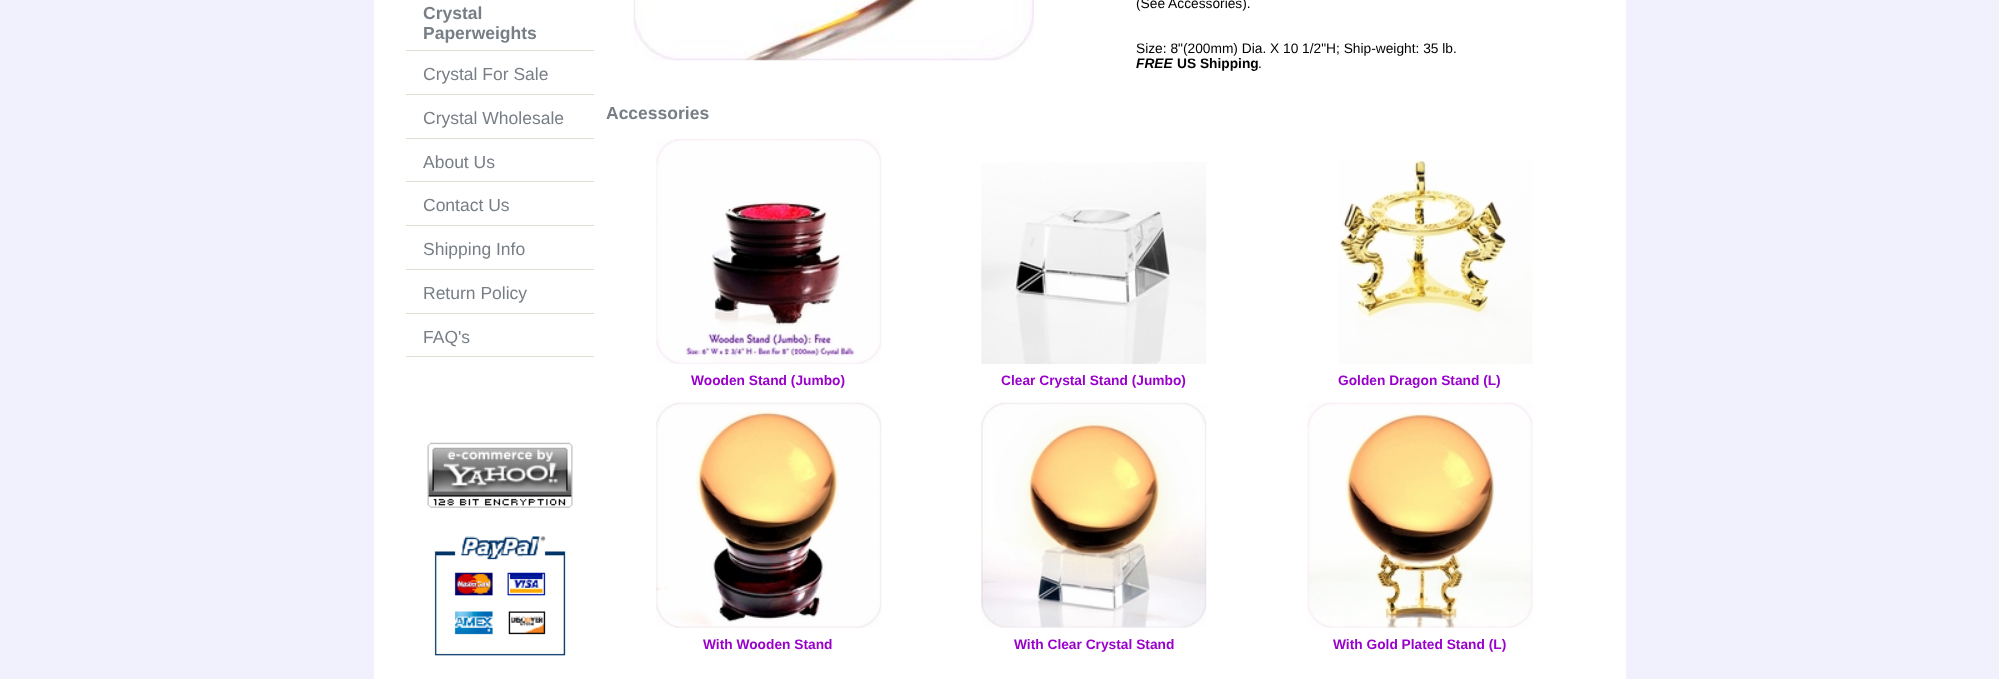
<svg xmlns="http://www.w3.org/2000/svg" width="1999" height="679">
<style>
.a{font:bold 17.5px Liberation Sans;fill:#777e85}
.b{font:17.5px Liberation Sans;fill:#777e85}
.c{font:13.75px Liberation Sans;fill:#000}
.d{font:italic bold 13.75px Liberation Sans;fill:#000}
.e{font:bold 13.75px Liberation Sans;fill:#000}
.f{font:bold 13.75px Liberation Sans;fill:#90c}
</style>
<rect width="100%" height="100%" fill="#f1f1fe"/>
<path fill="#fff" d="M374 0h1252v679H374z"/>
<path fill="#e0ddd2" d="M406 50h188v1H406z"/>
<path fill="#e0ddd2" d="M406 94h188v1H406z"/>
<path fill="#e0ddd2" d="M406 138h188v1H406z"/>
<path fill="#e0ddd2" d="M406 181h188v1H406z"/>
<path fill="#e0ddd2" d="M406 225h188v1H406z"/>
<path fill="#e0ddd2" d="M406 269h188v1H406z"/>
<path fill="#e0ddd2" d="M406 313h188v1H406z"/>
<path fill="#e0ddd2" d="M406 356h188v1H406z"/>
<image href="1.png" x="427" y="442" width="146" height="66"/>
<image href="2.png" x="434" y="536" width="132" height="120"/>
<image href="3.png" x="633" y="0" width="401" height="61"/>
<image href="4.png" x="656" y="139" width="226" height="225"/>
<image href="5.png" x="981" y="162" width="226" height="202"/>
<image href="6.png" x="1338" y="160" width="195" height="204"/>
<image href="7.png" x="656" y="402" width="226" height="226"/>
<image href="8.png" x="981" y="402" width="226" height="226"/>
<image href="9.png" x="1307" y="402" width="226" height="226"/>
<text class="a" x="423" y="19">Crystal</text>
<text class="a" x="423" y="39">Paperweights</text>
<text class="b" x="423" y="80">Crystal For Sale</text>
<text class="b" x="423" y="124">Crystal Wholesale</text>
<text class="b" x="423" y="168">About Us</text>
<text class="b" x="423" y="211">Contact Us</text>
<text class="b" x="423" y="255">Shipping Info</text>
<text class="b" x="423" y="299">Return Policy</text>
<text class="b" x="423" y="343">FAQ's</text>
<text class="c" x="1136" y="8">(See Accessories).</text>
<text class="c" x="1136" y="53">Size: 8"(200mm) Dia. X 10 1/2"H; Ship-weight: 35 lb.</text>
<text class="d" x="1136" y="68">FREE</text>
<text class="e" x="1177" y="68">US Shipping</text>
<text class="c" x="1258" y="68">.</text>
<text class="a" x="606" y="119">Accessories</text>
<text class="f" x="691" y="385">Wooden Stand (Jumbo)</text>
<text class="f" x="1001" y="385">Clear Crystal Stand (Jumbo)</text>
<text class="f" x="1338" y="385">Golden Dragon Stand (L)</text>
<text class="f" x="703" y="649">With Wooden Stand</text>
<text class="f" x="1014" y="649">With Clear Crystal Stand</text>
<text class="f" x="1333" y="649">With Gold Plated Stand (L)</text>
</svg>
